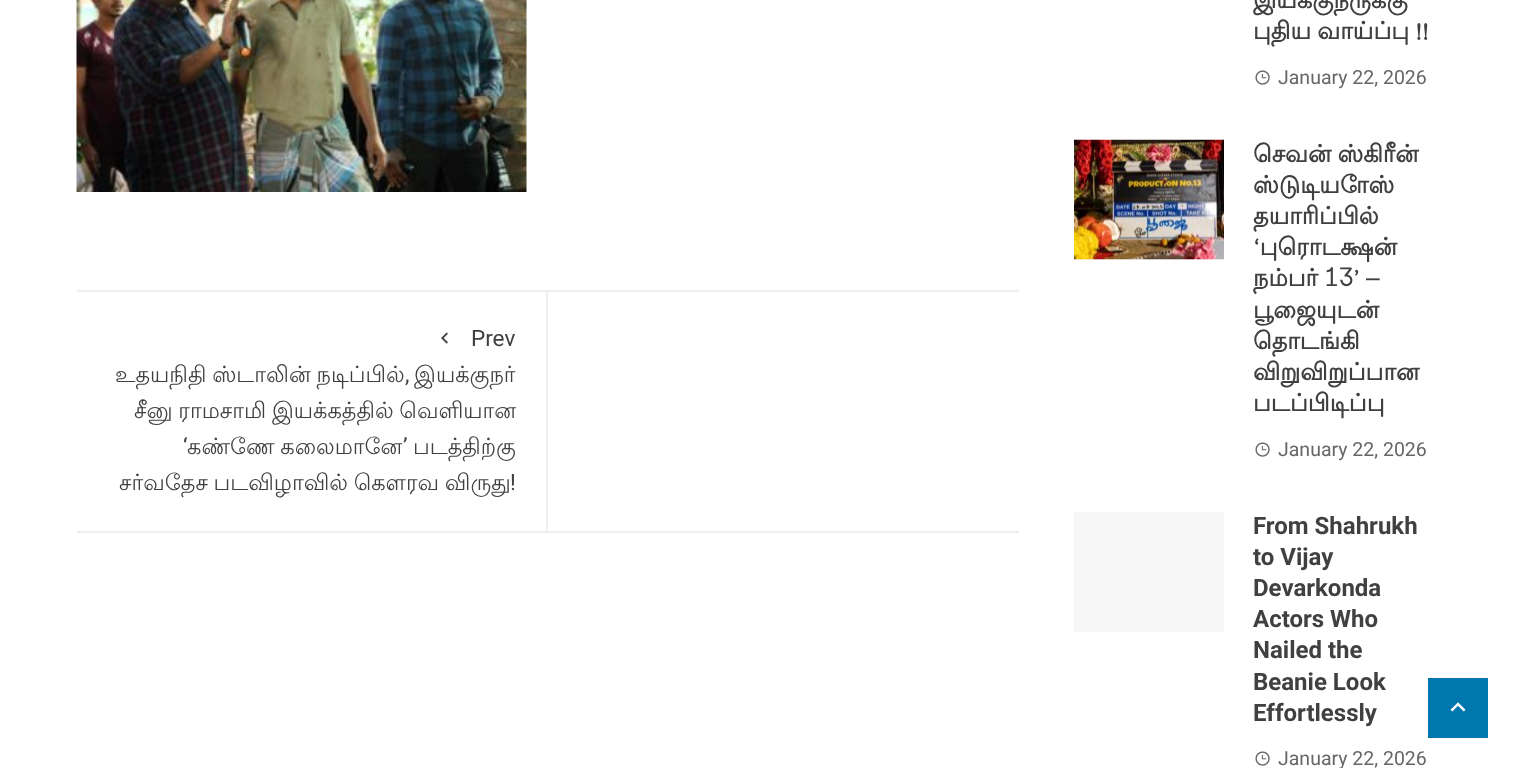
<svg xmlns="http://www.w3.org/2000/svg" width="1518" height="768">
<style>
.a{font:22.5px Roboto;fill:#404040}
.b{font:22.5px Lohit Tamil;fill:#404040}
.c{font:bold 24px Lohit Tamil;fill:#404040}
.d{font:19.5px Roboto;fill:#666}
.e{font:bold 24px Roboto;fill:#404040}
</style>
<rect width="100%" height="100%" fill="#fff"/>
<image href="1.png" x="76" y="0" width="451" height="192"/>
<path fill="#eee" d="M77 290h942v2H77z"/>
<path fill="#eee" d="M77 531h942v2H77z"/>
<path fill="#eee" d="M546 291h2v240H546z"/>
<image href="2.png" x="441" y="332" width="7" height="12"/>
<image href="3.png" x="1255" y="70" width="15" height="15"/>
<path fill="#f7f7f7" d="M1074 259h150v1H1074z"/>
<image href="4.png" x="1074" y="139" width="150" height="121"/>
<image href="3.png" x="1255" y="442" width="15" height="15"/>
<path fill="#f7f7f7" d="M1074 512h150v120H1074z"/>
<image href="3.png" x="1255" y="751" width="15" height="15"/>
<path fill="#0078af" d="M1428 678h60v60H1428z"/>
<image href="5.png" x="1450" y="702" width="16" height="10"/>
<text class="a" x="471" y="346">Prev</text>
<text class="b" x="115" y="382" word-spacing="-1">உதயநிதி ஸ்டாலின் நடிப்பில்</text>
<text class="a" x="405" y="382">,</text>
<text class="b" x="414" y="382">இயக்குநர்</text>
<text class="b" x="134" y="418" word-spacing="-1">சீனு ராமசாமி இயக்கத்தில் வெளியான</text>
<text class="a" x="183" y="454">‘</text>
<text class="b" x="187" y="454" word-spacing="-1">கண்ணே கலைமானே</text>
<text class="a" x="403" y="454">’</text>
<text class="b" x="413" y="454">படத்திற்கு</text>
<text class="b" x="119" y="490" word-spacing="-1">சர்வதேச படவிழாவில் கெளரவ விருது</text>
<text class="a" x="510" y="490">!</text>
<text class="c" x="1253" y="8">இயக்குநருக்கு</text>
<text class="c" x="1253" y="39" word-spacing="-1">புதிய வாய்ப்பு !!</text>
<text class="d" x="1278" y="84">January 22, 2026</text>
<text class="c" x="1253" y="162" word-spacing="-1">செவன் ஸ்கிரீன்</text>
<text class="c" x="1253" y="193">ஸ்டுடியோஸ்</text>
<text class="c" x="1253" y="224">தயாரிப்பில்</text>
<text class="c" x="1253" y="255">‘புரொடக்ஷன்</text>
<text class="c" x="1253" y="286" word-spacing="-1">நம்பர் 13’ –</text>
<text class="c" x="1253" y="318">பூஜையுடன்</text>
<text class="c" x="1253" y="349">தொடங்கி</text>
<text class="c" x="1253" y="380">விறுவிறுப்பான</text>
<text class="c" x="1253" y="411">படப்பிடிப்பு</text>
<text class="d" x="1278" y="456">January 22, 2026</text>
<text class="e" x="1253" y="534">From Shahrukh</text>
<text class="e" x="1253" y="565">to Vijay</text>
<text class="e" x="1253" y="596">Devarkonda</text>
<text class="e" x="1253" y="627">Actors Who</text>
<text class="e" x="1253" y="658">Nailed the</text>
<text class="e" x="1253" y="690">Beanie Look</text>
<text class="e" x="1253" y="721">Effortlessly</text>
<text class="d" x="1278" y="765">January 22, 2026</text>
</svg>
